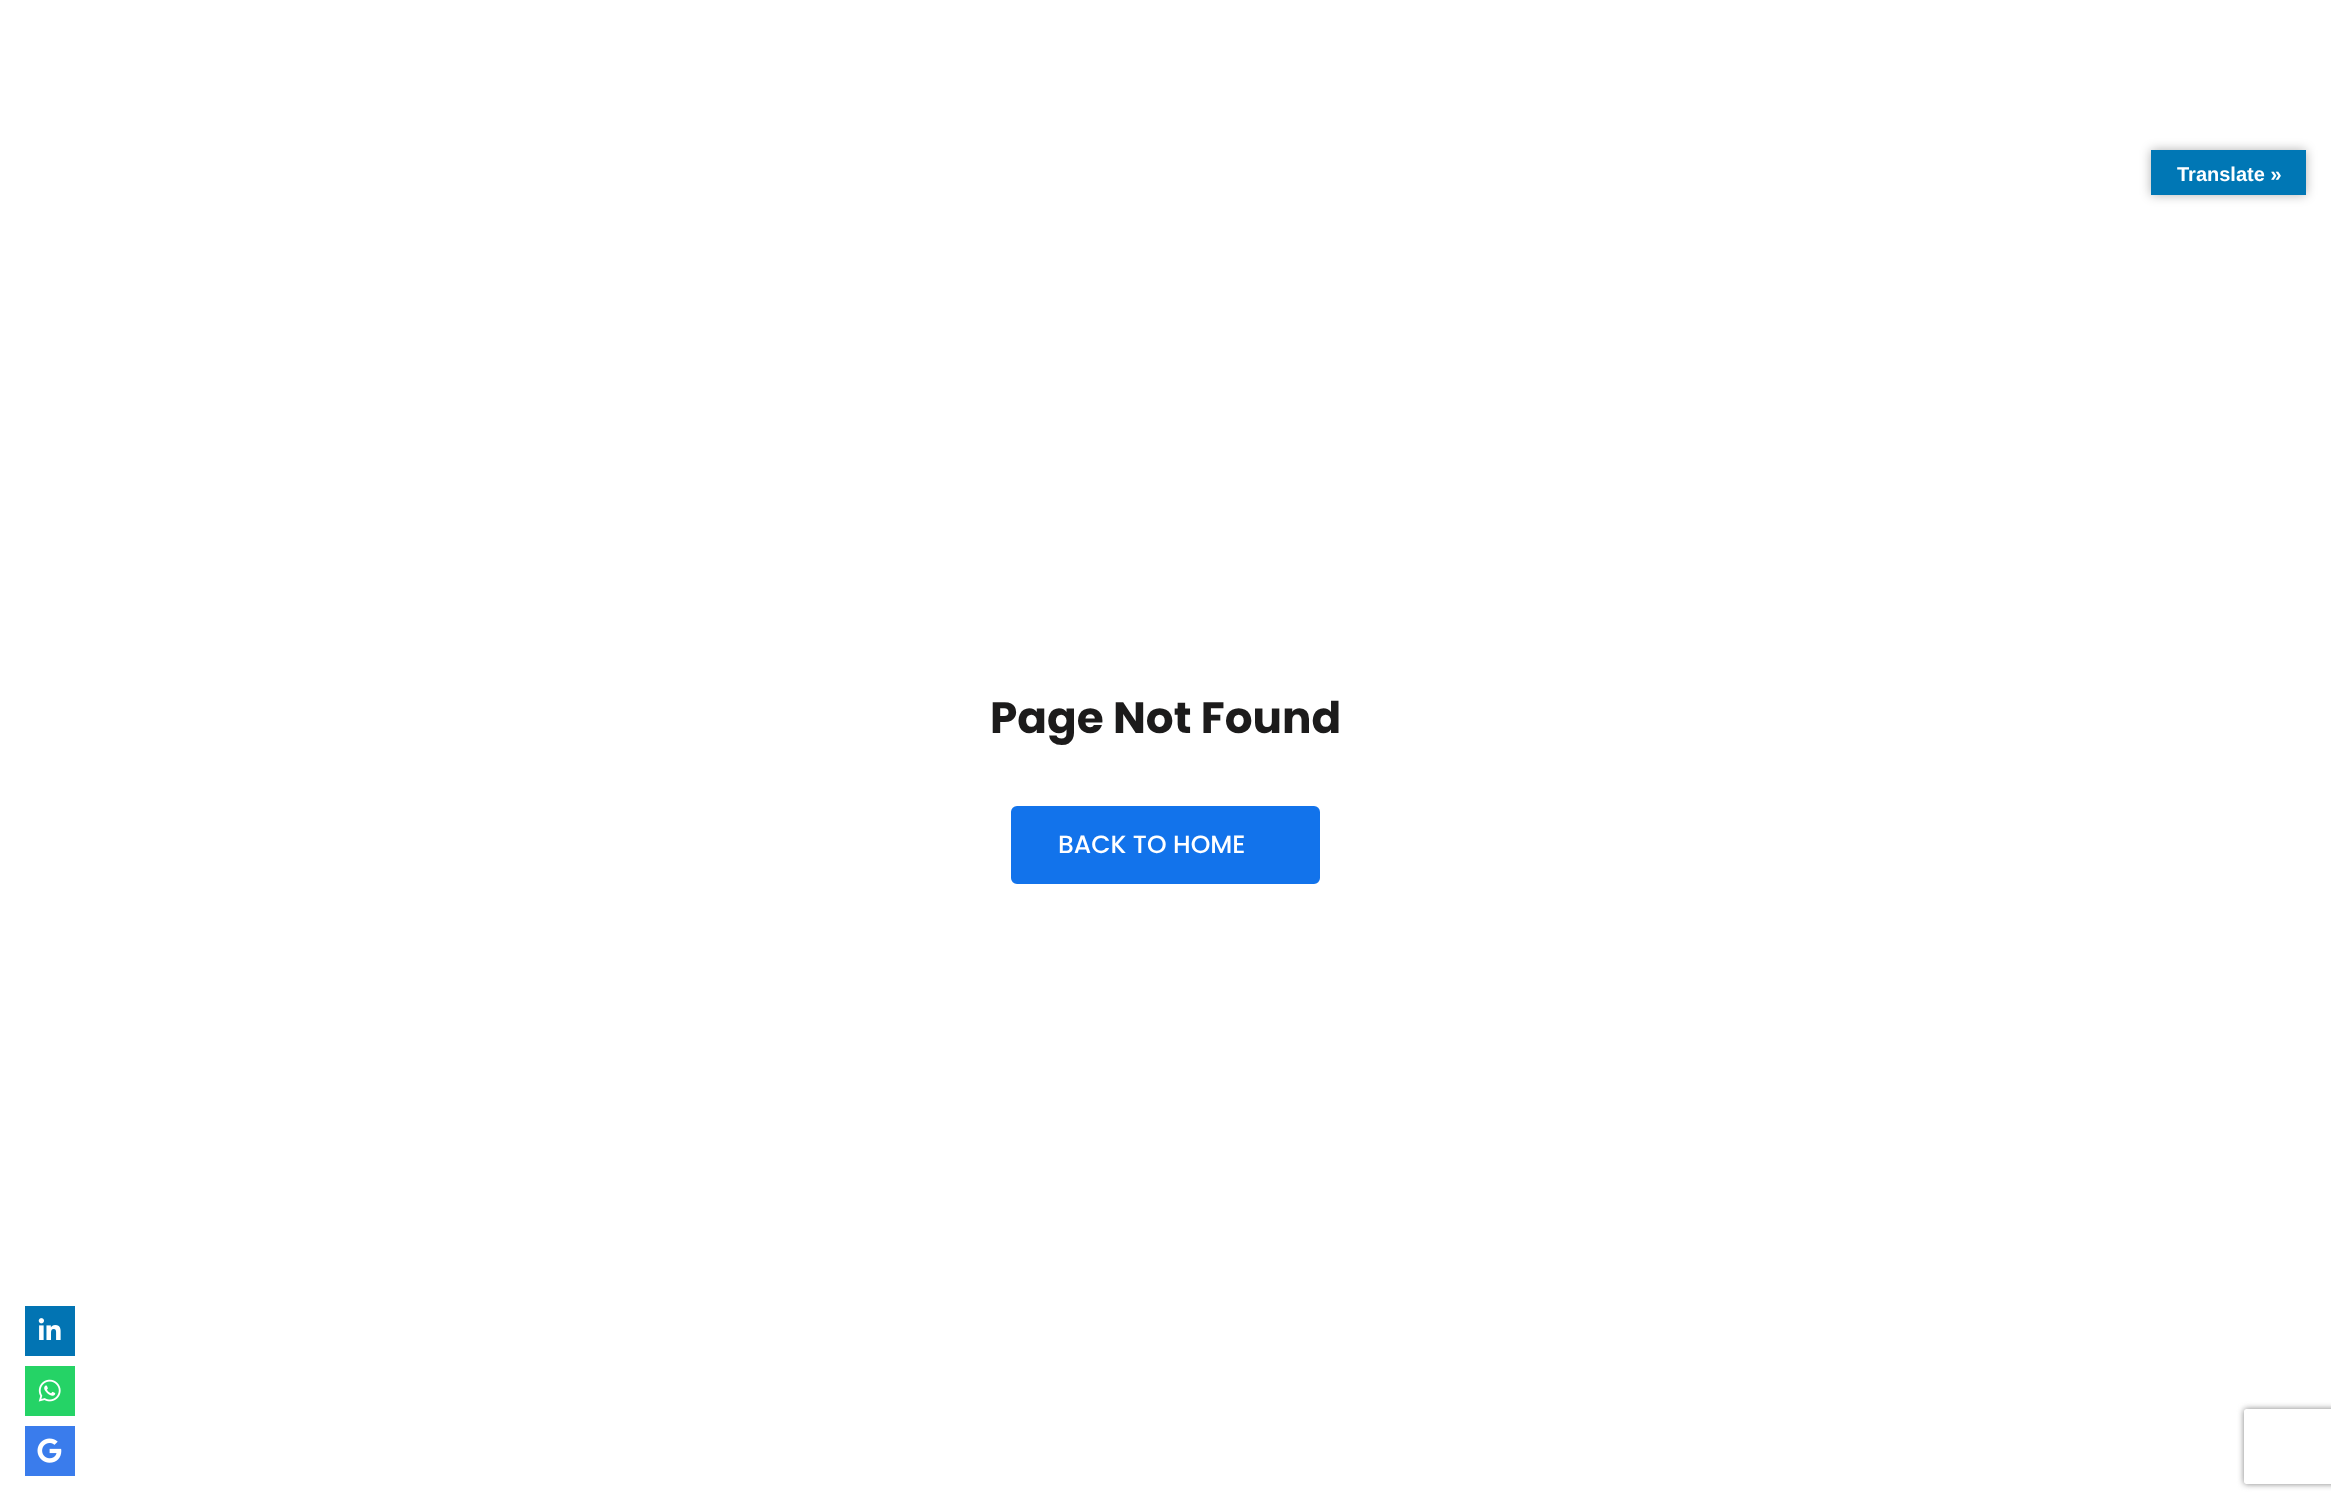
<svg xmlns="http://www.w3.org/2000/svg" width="2331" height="1501">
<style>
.a{font:bold 20px Liberation Sans;fill:#fff}
.b{font:bold 43.75px Poppins;fill:#1c1b1b}
.c{font:500 25px Poppins;fill:#fff}
</style>
<defs>
<clipPath id="clip1"><path d="M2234 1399h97v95h-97zm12.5 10h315c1.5 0 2.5 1 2.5 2.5v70c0 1.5-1 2.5-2.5 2.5h-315c-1.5 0-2.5-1-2.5-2.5v-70c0-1.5 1-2.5 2.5-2.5z" clip-rule="evenodd"/></clipPath>
</defs>
<rect width="100%" height="100%" fill="#fff"/>
<path fill="#0000004d" filter="blur(5.5px)" d="M2151 150h155v45H2151z"/>
<path fill="#0077b5" d="M2151 150h155v45H2151z"/>
<rect fill="#1273eb" stroke="#1273eb" stroke-width="3" x="1012.5" y="807.5" width="306" height="75" rx="4.5"/>
<path fill="#0274b3" d="M25 1306h50v50H25z"/>
<image href="1.png" x="38" y="1318" width="23" height="22"/>
<path fill="#25d366" d="M25 1366h50v50H25z"/>
<image href="2.png" x="38" y="1379" width="23" height="23"/>
<path fill="#3a7cec" d="M25 1426h50v50H25z"/>
<image href="3.png" x="37" y="1438" width="25" height="25"/>
<g clip-path="url(#clip1)">
<rect fill="#808080" filter="blur(3px)" x="2244" y="1409" width="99" height="75" rx="2.5"/>
</g>
<text class="a" x="2177" y="181">Translate »</text>
<text class="b" x="990" y="733">Page Not Found</text>
<text class="c" x="1058" y="853">BACK TO HOME</text>
</svg>
